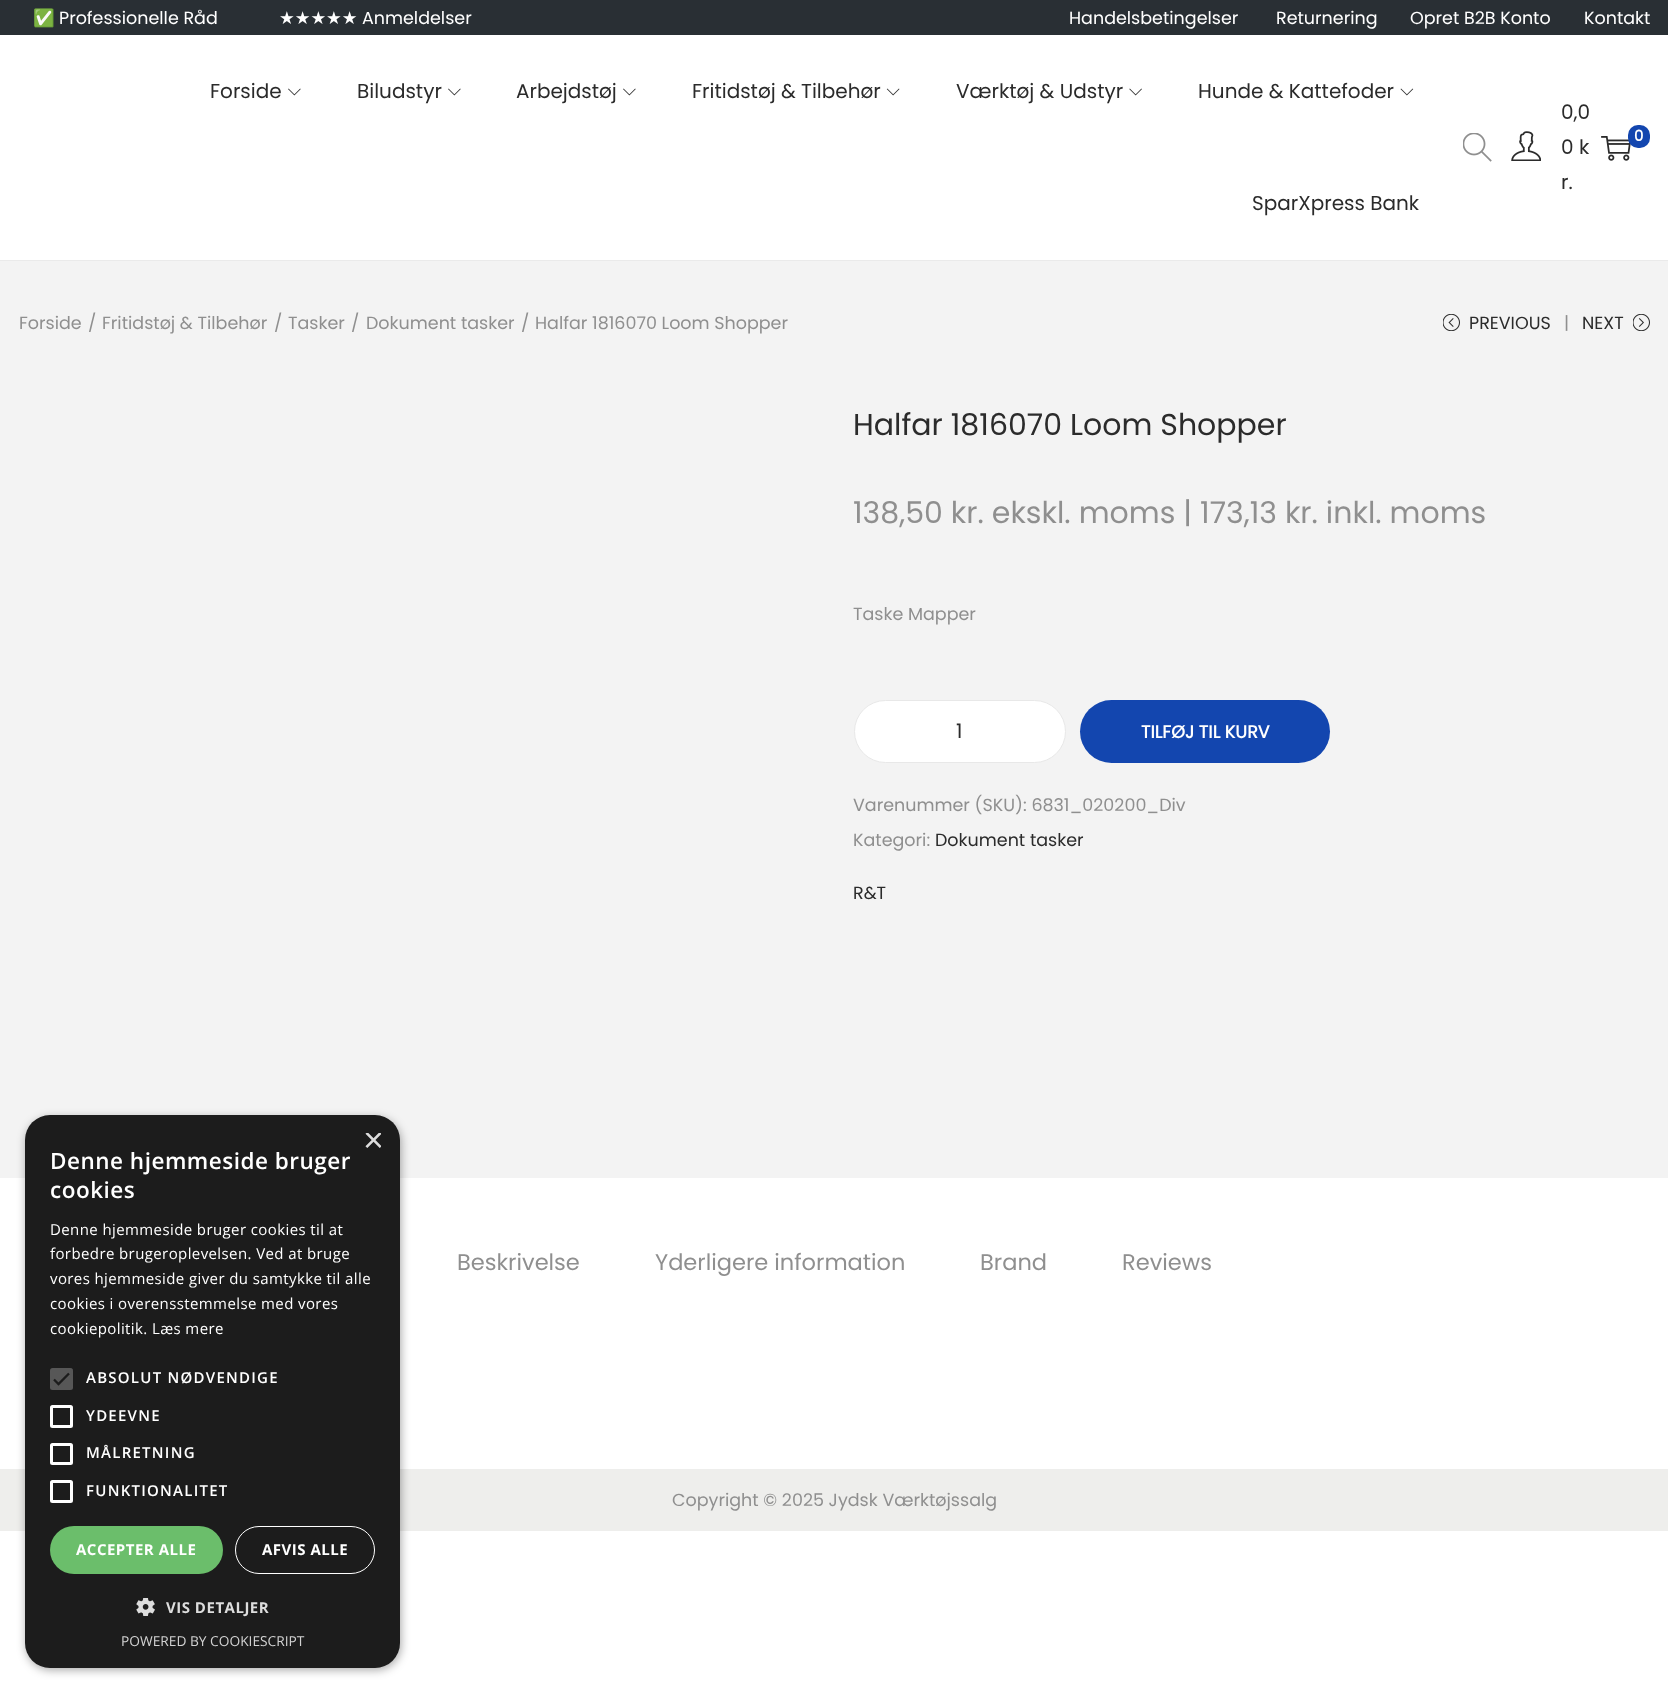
<svg xmlns="http://www.w3.org/2000/svg" width="1668" height="1692">
<style>
.a{font:17.5px Noto Color Emoji;fill:#fff}
.b{font:17.5px Poppins;fill:#fff}
.c{font:17.5px DejaVu Sans;fill:#fff}
.d{font:20px Poppins;fill:#2b2b2b}
.e{font:bold 15px Poppins;fill:#fff}
.f{font:17.5px Poppins;fill:#8f8f8f}
.g{font:17.5px Poppins;fill:#2b2b2b}
.h{font:30px Poppins;fill:#2b2b2b}
.i{font:30px Poppins;fill:#8f8f8f}
.j{font:bold 17.5px Poppins;fill:#fff}
.k{font:22.5px Poppins;fill:#8f8f8f}
.l{font:36px Liberation Sans;fill:#ddd}
.m{font:600 22.5px Open Sans;letter-spacing:0.5px;fill:#fff}
.n{font:15px Open Sans;letter-spacing:0.4px;fill:#fff}
.o{font:600 15px Open Sans;letter-spacing:1.25px;fill:#fff}
.p{font:bold 15px Open Sans;letter-spacing:0.5px;fill:#fff}
.q{font:bold 15px Open Sans;letter-spacing:0.5px;fill:#ddd}
.r{font:13.75px Open Sans;fill:#d2d2d2}
</style>
<defs>
<clipPath id="clip1"><path d="M363 1133h18v18H363z"/></clipPath>
</defs>
<rect width="100%" height="100%" fill="#fff"/>
<path fill="#292f34" d="M0 0h1668v35H0z"/>
<path fill="#eaeaea" d="M0 260h1668v1H0z"/>
<image href="1.png" x="288" y="88" width="13" height="8"/>
<image href="1.png" x="448" y="88" width="13" height="8"/>
<image href="1.png" x="623" y="88" width="13" height="8"/>
<image href="2.png" x="886" y="88" width="14" height="8"/>
<image href="3.png" x="1129" y="88" width="13" height="8"/>
<image href="4.png" x="1400" y="88" width="14" height="8"/>
<image href="5.png" x="1463" y="133" width="29" height="29"/>
<image href="6.png" x="1511" y="131" width="30" height="30"/>
<image href="7.png" x="1601" y="136" width="30" height="25"/>
<rect fill="#1346af" x="1628" y="125" width="22" height="23" rx="10"/>
<path fill="#f3f3f3" d="M0 261h1668v917H0z"/>
<image href="8.png" x="1443" y="314" width="17" height="17"/>
<image href="9.png" x="1633" y="314" width="17" height="17"/>
<rect fill="#fff" stroke="#e8e8e8" x="854.5" y="700.5" width="211" height="62" rx="31"/>
<rect fill="#1346af" x="1080" y="700" width="250" height="63" rx="31.5"/>
<path fill="#eeeeec" d="M0 1469h1668v62H0z"/>
<rect fill="#00000059" filter="blur(5px)" x="26" y="1118" width="375" height="552" rx="25"/>
<rect fill="#1c1c1c" x="25" y="1115" width="375" height="553" rx="25"/>
<rect fill="#575757" x="50" y="1368" width="23" height="22" rx="2.5"/>
<path fill="none" stroke="#1c1c1c" stroke-width="2.3" d="M54 1379.5l4.5 4.5l10.5-10.5"/>
<rect fill="none" stroke="#fff" stroke-width="3" x="51.5" y="1406.5" width="20" height="20" rx="1"/>
<rect fill="none" stroke="#fff" stroke-width="3" x="51.5" y="1444.5" width="20" height="19" rx="1"/>
<rect fill="none" stroke="#fff" stroke-width="3" x="51.5" y="1481.5" width="20" height="20" rx="1"/>
<rect fill="#6bbe6b" x="50" y="1526" width="173" height="48" rx="24"/>
<rect fill="none" stroke="#fff" x="235.5" y="1526.5" width="139" height="47" rx="23.5"/>
<image href="10.png" x="136" y="1598" width="19" height="18"/>
<text class="a" x="33" y="24">✅</text>
<text class="b" x="59" y="24">Professionelle Råd</text>
<text class="c" x="279" y="24">★★★★★</text>
<text class="b" x="362" y="24">Anmeldelser</text>
<text class="b" x="1069" y="24">Handelsbetingelser</text>
<text class="b" x="1276" y="24">Returnering</text>
<text class="b" x="1410" y="24">Opret B2B Konto</text>
<text class="b" x="1584" y="24">Kontakt</text>
<text class="d" x="210" y="98">Forside</text>
<text class="d" x="357" y="98">Biludstyr</text>
<text class="d" x="516" y="98">Arbejdstøj</text>
<text class="d" x="692" y="98">Fritidstøj &amp; Tilbehør</text>
<text class="d" x="956" y="98">Værktøj &amp; Udstyr</text>
<text class="d" x="1198" y="98">Hunde &amp; Kattefoder</text>
<text class="d" x="1252" y="210">SparXpress Bank</text>
<text class="d" x="1561" y="119">0,0</text>
<text class="d" x="1561" y="154">0 k</text>
<text class="d" x="1561" y="189">r.</text>
<text class="e" x="1634" y="141">0</text>
<text class="f" x="19" y="329">Forside</text>
<text class="f" x="88" y="329">/</text>
<text class="f" x="102" y="329">Fritidstøj &amp; Tilbehør</text>
<text class="f" x="274" y="329">/</text>
<text class="f" x="288" y="329">Tasker</text>
<text class="f" x="351" y="329">/</text>
<text class="f" x="366" y="329">Dokument tasker</text>
<text class="f" x="521" y="329">/</text>
<text class="f" x="535" y="329">Halfar 1816070 Loom Shopper</text>
<text class="g" x="1469" y="329">PREVIOUS</text>
<text class="f" x="1564" y="329">|</text>
<text class="g" x="1582" y="329">NEXT</text>
<text class="h" x="853" y="435">Halfar 1816070 Loom Shopper</text>
<text class="i" x="853" y="523">138,50 kr. ekskl. moms | 173,13 kr. inkl. moms</text>
<text class="f" x="853" y="620">Taske Mapper</text>
<text class="d" x="956" y="738">1</text>
<text class="j" x="1141" y="738">TILFØJ TIL KURV</text>
<text class="f" x="853" y="811">Varenummer (SKU): 6831_020200_Div</text>
<text class="f" x="853" y="846">Kategori:</text>
<text class="g" x="935" y="846">Dokument tasker</text>
<text class="g" x="853" y="899">R&amp;T</text>
<text class="k" x="457" y="1270">Beskrivelse</text>
<text class="k" x="655" y="1270">Yderligere information</text>
<text class="k" x="980" y="1270">Brand</text>
<text class="k" x="1122" y="1270">Reviews</text>
<text class="f" x="672" y="1506">Copyright © 2025 Jydsk Værktøjssalg</text>
<g clip-path="url(#clip1)">
<text class="l" x="363" y="1152">×</text>
</g>
<text class="m" x="50" y="1169">Denne hjemmeside bruger</text>
<text class="m" x="50" y="1198">cookies</text>
<text class="n" x="50" y="1235">Denne hjemmeside bruger cookies til at</text>
<text class="n" x="50" y="1259">forbedre brugeroplevelsen. Ved at bruge</text>
<text class="n" x="50" y="1284">vores hjemmeside giver du samtykke til alle</text>
<text class="n" x="50" y="1309">cookies i overensstemmelse med vores</text>
<text class="n" x="50" y="1334">cookiepolitik. Læs mere</text>
<text class="o" x="86" y="1383">ABSOLUT NØDVENDIGE</text>
<text class="o" x="86" y="1421">YDEEVNE</text>
<text class="o" x="86" y="1458">MÅLRETNING</text>
<text class="o" x="86" y="1496">FUNKTIONALITET</text>
<text class="p" x="76" y="1555">ACCEPTER ALLE</text>
<text class="p" x="262" y="1555">AFVIS ALLE</text>
<text class="q" x="166" y="1613">VIS DETALJER</text>
<text class="r" x="121" y="1646">POWERED BY COOKIESCRIPT</text>
</svg>
